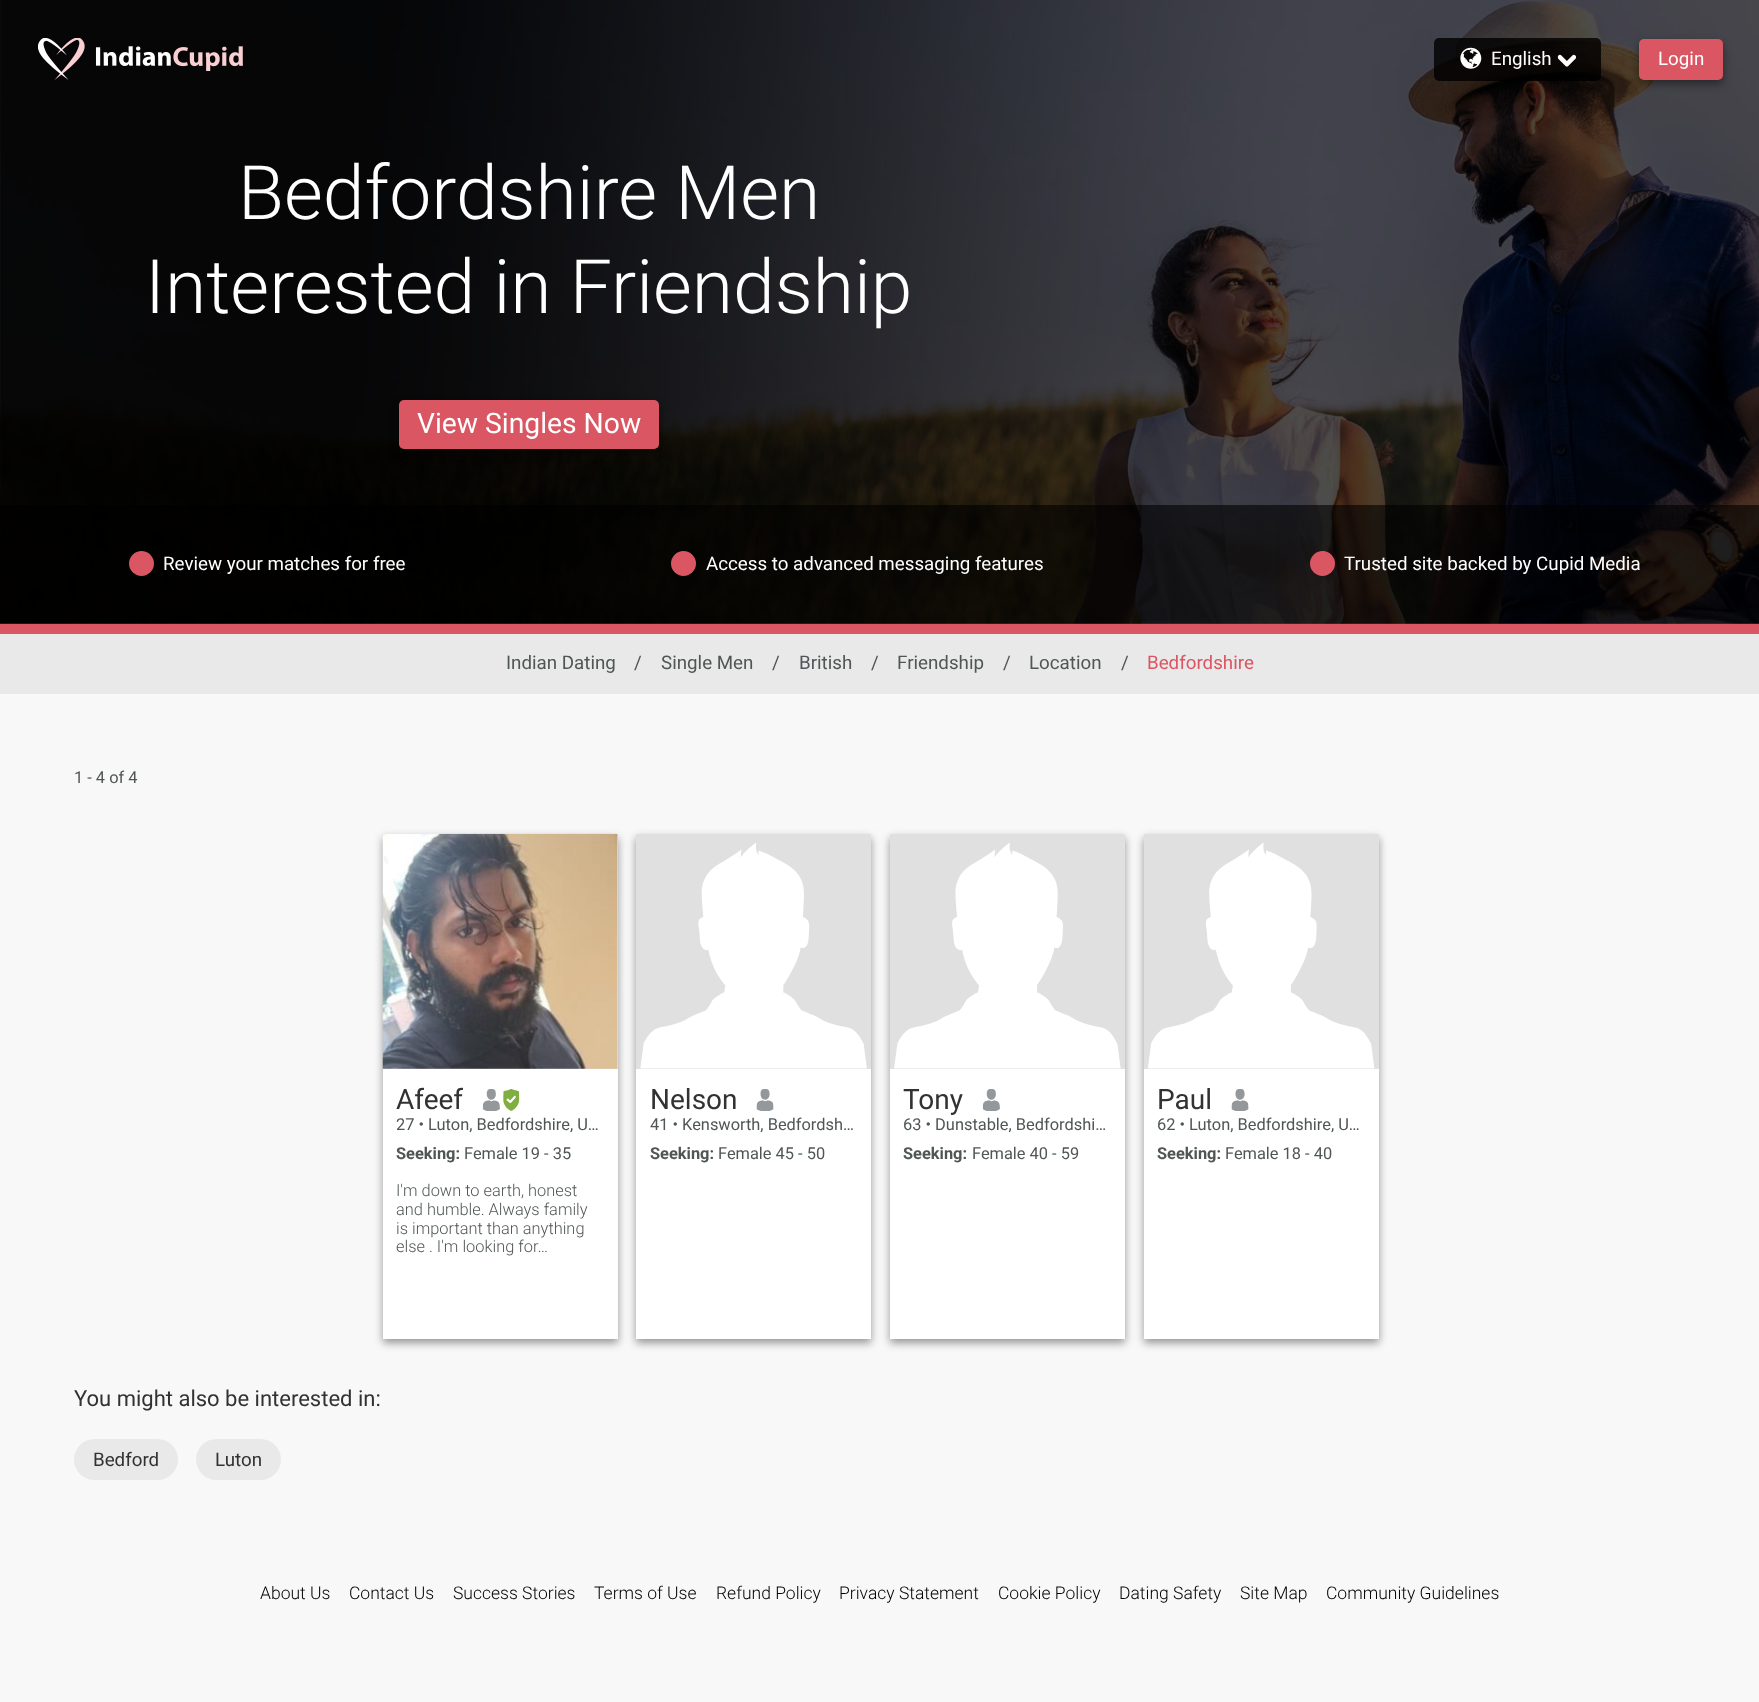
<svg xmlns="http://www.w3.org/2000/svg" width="1759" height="1702">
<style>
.a{font:18.75px Roboto;fill:#fff}
.b{font:300 75px Roboto;fill:#fff}
.c{font:28.25px Roboto;fill:#fff}
.d{font:18.75px Roboto;fill:#505656}
.e{font:18.75px Roboto;fill:#da5663}
.f{font:16.4px Roboto;fill:#505656}
.g{font:28px Roboto;fill:#323232}
.h{font:bold 16.4px Roboto;fill:#505656}
.i{font:300 16.4px Roboto;fill:#505656}
.j{font:22px Roboto;fill:#323232}
.k{font:18.75px Roboto;fill:#323232}
.l{font:300 17.5px Roboto;fill:#000}
</style>
<rect width="100%" height="100%" fill="#f8f8f8"/>
<image href="5.png" x="0" y="0" width="1759" height="624"/>
<image href="1.png" x="38" y="38" width="47" height="42"/>
<image href="2.png" x="95" y="46" width="148" height="25"/>
<rect fill="#000000cc" x="1434" y="38" width="167" height="43" rx="5"/>
<image href="3.png" x="1460" y="47" width="22" height="22"/>
<image href="4.png" x="1557" y="54" width="19" height="13"/>
<rect fill="#00000066" filter="blur(4px)" x="1639" y="43" width="84" height="41" rx="5"/>
<rect fill="#da5663" x="1639" y="39" width="84" height="41" rx="5"/>
<rect fill="#00000066" filter="blur(4px)" x="399" y="404" width="260" height="49" rx="5"/>
<rect fill="#da5663" x="399" y="400" width="260" height="49" rx="5"/>
<path fill="#00000099" d="M0 505h1759v119H0z"/>
<circle fill="#da5663" cx="141.5" cy="563.5" r="12.5"/>
<circle fill="#da5663" cx="683.5" cy="563.5" r="12.5"/>
<circle fill="#da5663" cx="1322.5" cy="563.5" r="12.5"/>
<path fill="#da5663" d="M0 624h1759v10H0z"/>
<path fill="#e9e9e9" d="M0 634h1759v60H0z"/>
<path fill="#00000066" filter="blur(4px)" d="M383 838h235v505H383z"/>
<path fill="#fff" d="M383 1069h235v270H383z"/>
<path fill="#e0e0e0" d="M383 834h235v235H383z"/>
<image href="6.png" x="382" y="833" width="236" height="236"/>
<image href="7.png" x="482" y="1089" width="18" height="22"/>
<image href="8.png" x="503" y="1089" width="17" height="22"/>
<path fill="#00000066" filter="blur(4px)" d="M636 838h235v505H636z"/>
<path fill="#fff" d="M636 1069h235v270H636z"/>
<path fill="#e0e0e0" d="M636 834h235v235H636z"/>
<image href="9.png" x="640" y="843" width="227" height="226"/>
<image href="10.png" x="756" y="1089" width="18" height="22"/>
<path fill="#00000066" filter="blur(4px)" d="M890 838h235v505H890z"/>
<path fill="#fff" d="M890 1069h235v270H890z"/>
<path fill="#e0e0e0" d="M890 834h235v235H890z"/>
<image href="11.png" x="894" y="842" width="227" height="227"/>
<image href="7.png" x="982" y="1089" width="18" height="22"/>
<path fill="#00000066" filter="blur(4px)" d="M1144 838h235v505H1144z"/>
<path fill="#fff" d="M1144 1069h235v270H1144z"/>
<path fill="#e0e0e0" d="M1144 834h235v235H1144z"/>
<image href="12.png" x="1148" y="842" width="227" height="227"/>
<image href="13.png" x="1231" y="1089" width="18" height="22"/>
<rect fill="#e9e9e9" x="74" y="1439" width="104" height="41" rx="20.5"/>
<rect fill="#e9e9e9" x="196" y="1439" width="85" height="41" rx="20.5"/>
<text class="a" x="1491" y="65">English</text>
<text class="a" x="1658" y="65">Login</text>
<text class="b" x="238" y="219">Bedfordshire Men</text>
<text class="b" x="145" y="313">Interested in Friendship</text>
<text class="c" x="417" y="433">View Singles Now</text>
<text class="a" x="163" y="570">Review your matches for free</text>
<text class="a" x="706" y="570">Access to advanced messaging features</text>
<text class="a" x="1344" y="570">Trusted site backed by Cupid Media</text>
<text class="d" x="506" y="669">Indian Dating</text>
<text class="d" x="634" y="669">/</text>
<text class="d" x="661" y="669">Single Men</text>
<text class="d" x="772" y="669">/</text>
<text class="d" x="799" y="669">British</text>
<text class="d" x="871" y="669">/</text>
<text class="d" x="897" y="669">Friendship</text>
<text class="d" x="1003" y="669">/</text>
<text class="d" x="1029" y="669">Location</text>
<text class="d" x="1121" y="669">/</text>
<text class="e" x="1147" y="669">Bedfordshire</text>
<text class="f" x="74" y="783">1 - 4 of 4</text>
<text class="g" x="396" y="1109">Afeef</text>
<text class="f" x="396" y="1130">27 • Luton, Bedfordshire, U…</text>
<text class="h" x="396" y="1159">Seeking:</text>
<text class="f" x="464" y="1159">Female 19 - 35</text>
<text class="i" x="396" y="1196">I'm down to earth, honest</text>
<text class="i" x="396" y="1215">and humble. Always family</text>
<text class="i" x="396" y="1234">is important than anything</text>
<text class="i" x="396" y="1252">else . I'm looking for…</text>
<text class="g" x="650" y="1109">Nelson</text>
<text class="f" x="650" y="1130">41 • Kensworth, Bedfordsh…</text>
<text class="h" x="650" y="1159">Seeking:</text>
<text class="f" x="718" y="1159">Female 45 - 50</text>
<text class="g" x="903" y="1109">Tony</text>
<text class="f" x="903" y="1130">63 • Dunstable, Bedfordshi…</text>
<text class="h" x="903" y="1159">Seeking:</text>
<text class="f" x="972" y="1159">Female 40 - 59</text>
<text class="g" x="1157" y="1109">Paul</text>
<text class="f" x="1157" y="1130">62 • Luton, Bedfordshire, U…</text>
<text class="h" x="1157" y="1159">Seeking:</text>
<text class="f" x="1225" y="1159">Female 18 - 40</text>
<text class="j" x="74" y="1406">You might also be interested in:</text>
<text class="k" x="93" y="1466">Bedford</text>
<text class="k" x="215" y="1466">Luton</text>
<text class="l" x="260" y="1599">About Us</text>
<text class="l" x="349" y="1599">Contact Us</text>
<text class="l" x="453" y="1599">Success Stories</text>
<text class="l" x="594" y="1599">Terms of Use</text>
<text class="l" x="716" y="1599">Refund Policy</text>
<text class="l" x="839" y="1599">Privacy Statement</text>
<text class="l" x="998" y="1599">Cookie Policy</text>
<text class="l" x="1119" y="1599">Dating Safety</text>
<text class="l" x="1240" y="1599">Site Map</text>
<text class="l" x="1326" y="1599">Community Guidelines</text>
</svg>
